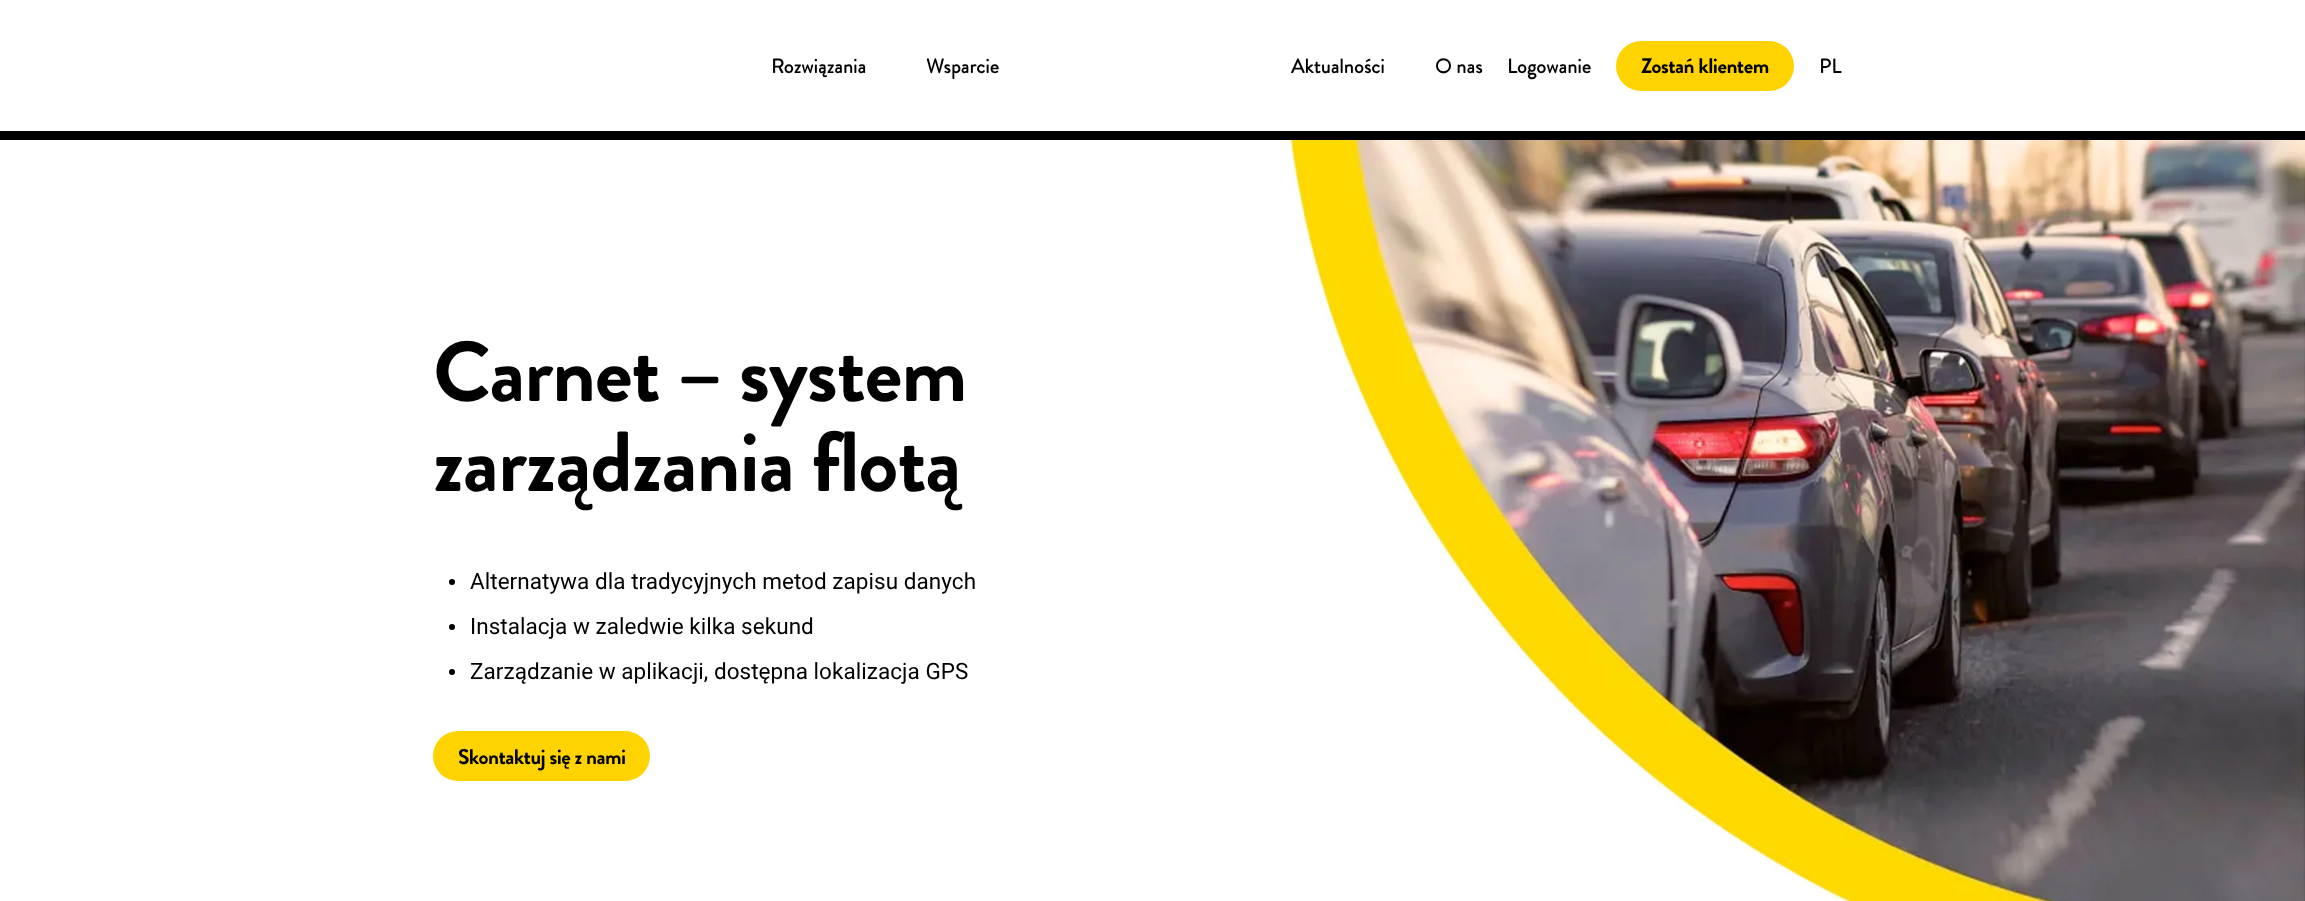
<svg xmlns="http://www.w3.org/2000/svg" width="2305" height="901">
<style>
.a{font:bold 20px 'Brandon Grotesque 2';letter-spacing:0.25px;fill:#000}
.b{font:bold 21.25px Brandon Grotesque;letter-spacing:-0.5px;fill:#000}
.c{font:bold 85px Brandon Grotesque;letter-spacing:-1.25px;fill:#000}
.d{font:22.5px Roboto;letter-spacing:0.05px;fill:#000}
</style>
<rect width="100%" height="100%" fill="#fff"/>
<rect fill="#ffd300" x="1616" y="41" width="178" height="50" rx="25"/>
<path fill="#000" d="M0 131h2305v9H0z"/>
<circle fill="#000" cx="452" cy="582" r="3"/>
<circle fill="#000" cx="452" cy="627" r="3"/>
<circle fill="#000" cx="452" cy="672" r="3"/>
<rect fill="#ffd300" x="433" y="731" width="217" height="50" rx="25"/>
<image href="1.png" x="1287" y="140" width="1018" height="761"/>
<text class="a" x="771" y="73">Rozwiązania</text>
<text class="a" x="926" y="73">Wsparcie</text>
<text class="a" x="1291" y="73">Aktualności</text>
<text class="a" x="1435" y="73">O nas</text>
<text class="a" x="1507" y="73">Logowanie</text>
<text class="b" x="1641" y="73">Zostań klientem</text>
<text class="a" x="1819" y="73">PL</text>
<text class="c" x="433" y="401">Carnet – system</text>
<text class="c" x="433" y="491">zarządzania flotą</text>
<text class="d" x="470" y="589">Alternatywa dla tradycyjnych metod zapisu danych</text>
<text class="d" x="470" y="634">Instalacja w zaledwie kilka sekund</text>
<text class="d" x="470" y="679">Zarządzanie w aplikacji, dostępna lokalizacja GPS</text>
<text class="b" x="458" y="764">Skontaktuj się z nami</text>
</svg>
